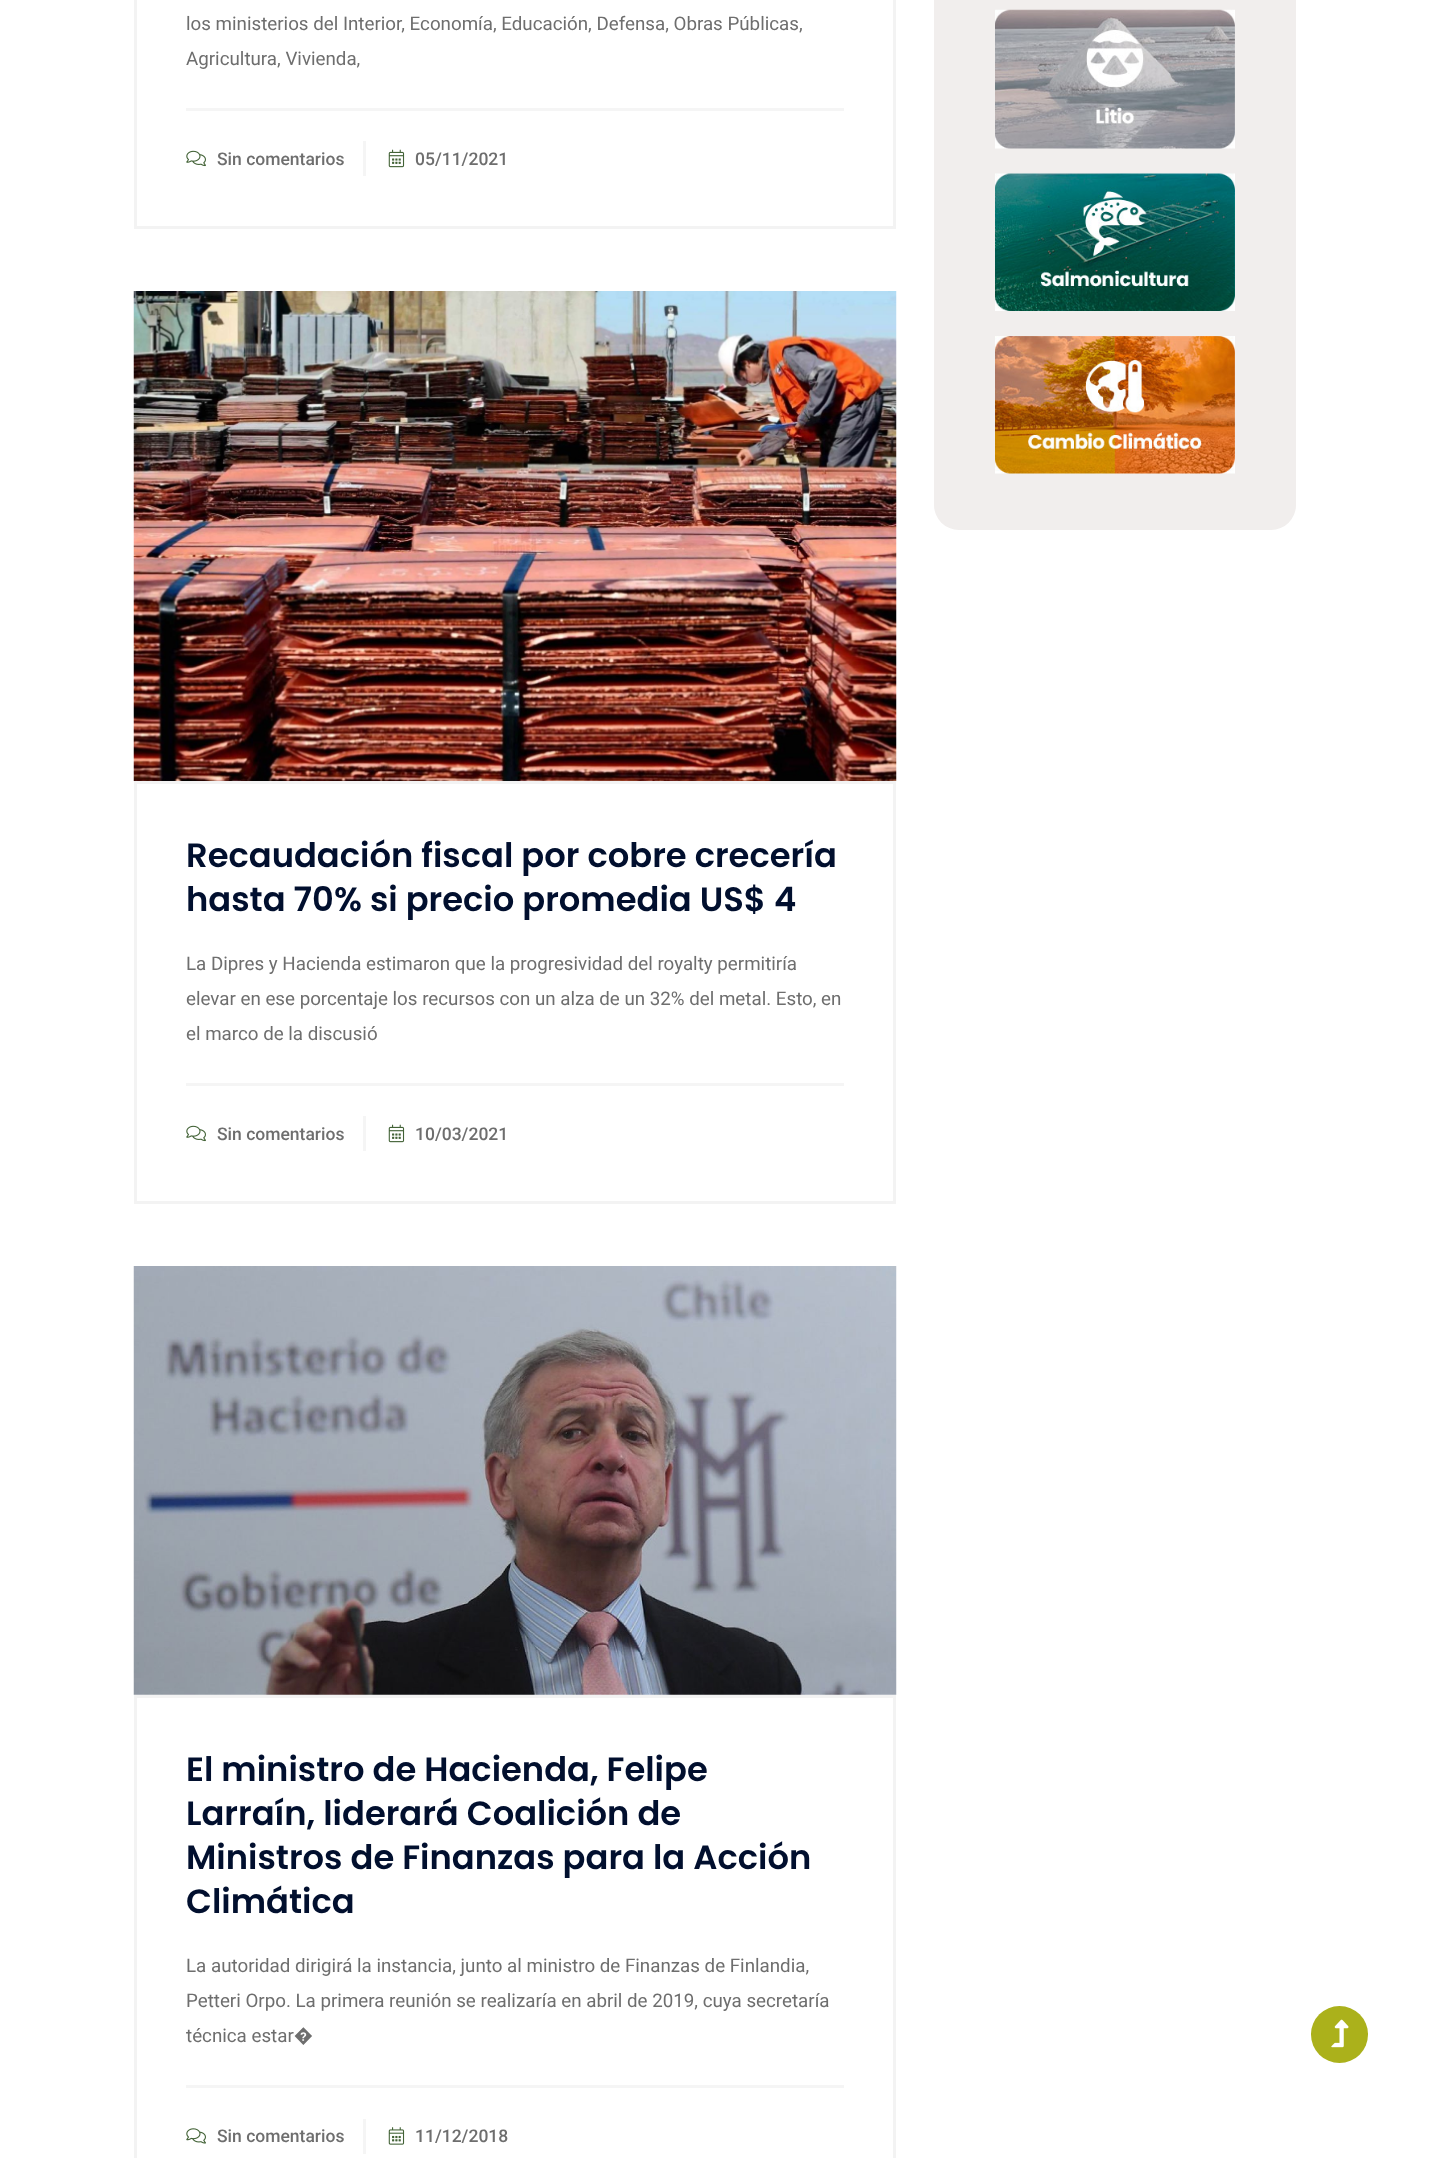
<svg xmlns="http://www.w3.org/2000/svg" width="1430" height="2158">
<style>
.a{font:18.75px Roboto;fill:#6e6e6e}
.b{font:500 17.5px Roboto;fill:#6e6e6e}
.c{font:600 33.75px Poppins;fill:#010f2e}
</style>
<rect width="100%" height="100%" fill="#fff"/>
<path fill="none" stroke="#f3f3f3" stroke-width="3" d="M135.5 -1.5h759v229H135.5z"/>
<path fill="#f5f5f5" d="M186 108h658v3H186z"/>
<path fill="#f5f5f5" d="M363 141h3v35H363z"/>
<image href="1.png" x="186" y="150" width="20" height="17"/>
<image href="2.png" x="388" y="149" width="17" height="19"/>
<image href="3.png" x="133" y="291" width="764" height="490"/>
<path fill="none" stroke="#f3f3f3" stroke-width="3" d="M135.5 782.5h759v420H135.5z"/>
<path fill="#f5f5f5" d="M186 1083h658v3H186z"/>
<path fill="#f5f5f5" d="M363 1116h3v35H363z"/>
<image href="1.png" x="186" y="1125" width="20" height="17"/>
<image href="2.png" x="388" y="1124" width="17" height="19"/>
<image href="4.png" x="133" y="1266" width="764" height="429"/>
<path fill="none" stroke="#f3f3f3" stroke-width="3" d="M135.5 1696.5h759v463H135.5z"/>
<path fill="#f5f5f5" d="M186 2085h658v3H186z"/>
<path fill="#f5f5f5" d="M363 2119h3v35H363z"/>
<image href="5.png" x="186" y="2128" width="20" height="16"/>
<image href="6.png" x="388" y="2127" width="17" height="18"/>
<rect fill="#f1eeed" x="934" y="-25" width="362" height="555" rx="25"/>
<image href="7.png" x="995" y="9" width="240" height="140"/>
<image href="8.png" x="995" y="173" width="240" height="138"/>
<image href="9.png" x="995" y="336" width="240" height="138"/>
<circle fill="#abb11b" cx="1339.5" cy="2034.5" r="28.5"/>
<image href="10.png" x="1331" y="2019" width="18" height="29"/>
<text class="a" x="186" y="30">los ministerios del Interior, Economía, Educación, Defensa, Obras Públicas,</text>
<text class="a" x="186" y="65">Agricultura, Vivienda,</text>
<text class="b" x="217" y="165">Sin comentarios</text>
<text class="b" x="415" y="165">05/11/2021</text>
<text class="c" x="186" y="867">Recaudación fiscal por cobre crecería</text>
<text class="c" x="186" y="911">hasta 70% si precio promedia US$ 4</text>
<text class="a" x="186" y="970">La Dipres y Hacienda estimaron que la progresividad del royalty permitiría</text>
<text class="a" x="186" y="1005">elevar en ese porcentaje los recursos con un alza de un 32% del metal. Esto, en</text>
<text class="a" x="186" y="1040">el marco de la discusió</text>
<text class="b" x="217" y="1140">Sin comentarios</text>
<text class="b" x="415" y="1140">10/03/2021</text>
<text class="c" x="186" y="1781">El ministro de Hacienda, Felipe</text>
<text class="c" x="186" y="1825">Larraín, liderará Coalición de</text>
<text class="c" x="186" y="1869">Ministros de Finanzas para la Acción</text>
<text class="c" x="186" y="1913">Climática</text>
<text class="a" x="186" y="1972">La autoridad dirigirá la instancia, junto al ministro de Finanzas de Finlandia,</text>
<text class="a" x="186" y="2007">Petteri Orpo. La primera reunión se realizaría en abril de 2019, cuya secretaría</text>
<text class="a" x="186" y="2042">técnica estar�</text>
<text class="b" x="217" y="2142">Sin comentarios</text>
<text class="b" x="415" y="2142">11/12/2018</text>
</svg>
